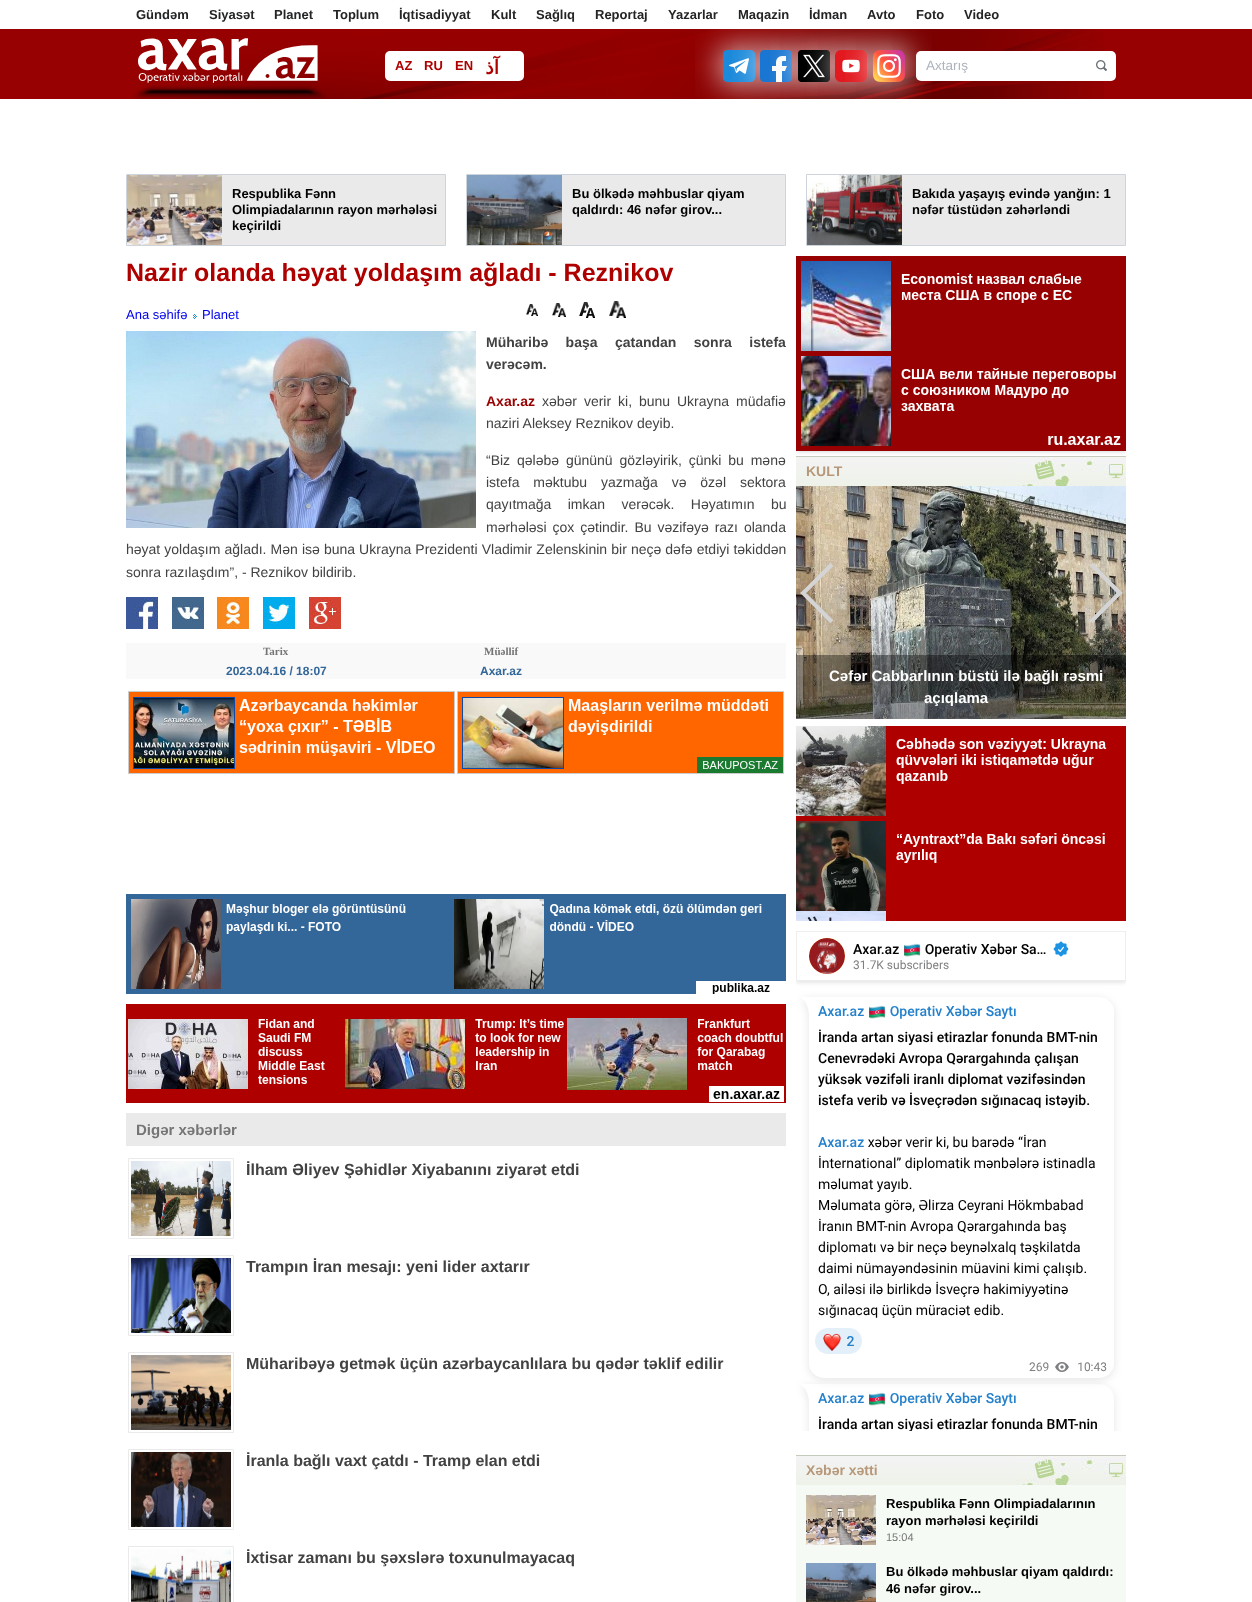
<svg xmlns="http://www.w3.org/2000/svg" width="1252" height="1602">
<style>
.a{font:bold 13px Liberation Sans;fill:#232426}
.b{font:bold 13px Liberation Sans;fill:#af0000}
.c{font:bold 19px DejaVu Sans;direction:rtl;fill:#af0000}
.d{font:13.5px Liberation Sans;fill:#adb3bc}
.e{font:bold 13px Liberation Sans;fill:#000}
.f{font:bold 25px Liberation Sans;fill:#af0000}
.g{font:13px Liberation Sans;fill:#00e}
.h{font:bold 14px Liberation Sans;fill:#424242}
.i{font:bold 14px Liberation Sans;fill:#970101}
.j{font:14px Liberation Sans;fill:#424242}
.k{font:bold 11px Liberation Serif;fill:#757575}
.l{font:bold 12px Liberation Sans;fill:#369}
.m{font:bold 15px Liberation Sans;fill:#757575}
.n{font:bold 16px Liberation Sans;fill:#424242}
.o{font:bold 14px Liberation Sans;fill:#b8987a}
.p{font:bold 15px Liberation Sans;fill:#fff}
.q{font:11px Liberation Sans;fill:#757575}
</style>
<rect width="100%" height="100%" fill="#fff"/>
<path fill="#970101" d="M0 29h1252v70H0z"/>
<image href="1.png" x="132" y="29" width="972" height="70"/>
<image href="2.png" x="138" y="38" width="180" height="45"/>
<rect fill="#fff" x="385" y="51" width="139" height="30" rx="5"/>
<image href="3.png" x="695" y="29" width="85" height="70"/>
<image href="4.png" x="732" y="29" width="86" height="70"/>
<image href="5.png" x="770" y="29" width="86" height="70"/>
<image href="6.png" x="807" y="29" width="85" height="70"/>
<rect fill="#fff" x="916" y="51" width="200" height="30" rx="5"/>
<image href="7.png" x="845" y="29" width="87" height="70"/>
<image href="8.png" x="1096" y="60" width="11" height="11"/>
<path fill="#eaeaea" d="M222 175h223v70H222z"/>
<path fill="none" stroke="#ced4dc" d="M126.5 174.5h319v71H126.5z"/>
<image href="9.png" x="127" y="175" width="95" height="70"/>
<path fill="#eaeaea" d="M562 175h223v70H562z"/>
<path fill="none" stroke="#ced4dc" d="M466.5 174.5h319v71H466.5z"/>
<image href="10.png" x="467" y="175" width="95" height="70"/>
<path fill="#eaeaea" d="M902 175h223v70H902z"/>
<path fill="none" stroke="#ced4dc" d="M806.5 174.5h319v71H806.5z"/>
<image href="11.png" x="807" y="175" width="95" height="70"/>
<image href="12.png" x="193" y="314" width="4" height="5"/>
<image href="13.png" x="526" y="304" width="12" height="12"/>
<image href="14.png" x="552" y="303" width="14" height="14"/>
<image href="15.png" x="579" y="302" width="16" height="16"/>
<image href="16.png" x="609" y="301" width="17" height="17"/>
<image href="17.png" x="126" y="331" width="350" height="197"/>
<image href="18.png" x="126" y="597" width="32" height="32"/>
<image href="19.png" x="172" y="597" width="32" height="32"/>
<image href="20.png" x="217" y="597" width="32" height="32"/>
<image href="21.png" x="263" y="597" width="32" height="32"/>
<image href="22.png" x="309" y="597" width="32" height="32"/>
<path fill="#f9f9f9" d="M126 643h660v36H126z"/>
<image href="23.png" x="128" y="691" width="656" height="83"/>
<image href="24.png" x="126" y="894" width="660" height="100"/>
<image href="25.png" x="126" y="1004" width="660" height="99"/>
<path fill="#eaeaea" d="M126 1113h660v33H126z"/>
<path fill="none" stroke="#eaeaea" d="M128.5 1158.5h105v80H128.5z"/>
<image href="26.png" x="131" y="1161" width="100" height="75"/>
<path fill="none" stroke="#eaeaea" d="M128.5 1255.5h105v80H128.5z"/>
<image href="27.png" x="131" y="1258" width="100" height="75"/>
<path fill="none" stroke="#eaeaea" d="M128.5 1352.5h105v80H128.5z"/>
<image href="28.png" x="131" y="1355" width="100" height="75"/>
<path fill="none" stroke="#eaeaea" d="M128.5 1449.5h105v80H128.5z"/>
<image href="29.png" x="131" y="1452" width="100" height="75"/>
<path fill="none" stroke="#eaeaea" d="M128.5 1546.5h105v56H128.5z"/>
<image href="30.png" x="131" y="1549" width="100" height="53"/>
<image href="31.png" x="796" y="256" width="330" height="199"/>
<image href="32.png" x="796" y="456" width="220" height="30"/>
<image href="33.png" x="1016" y="456" width="110" height="30"/>
<image href="38.png" x="796" y="486" width="330" height="233"/>
<image href="34.png" x="800" y="563" width="33" height="60"/>
<image href="35.png" x="800" y="563" width="33" height="60"/>
<image href="36.png" x="1090" y="563" width="33" height="60"/>
<image href="37.png" x="1090" y="563" width="33" height="60"/>
<path fill="#00000061" d="M796 655h330v64H796z"/>
<image href="39.png" x="796" y="726" width="330" height="195"/>
<image href="40.png" x="796" y="931" width="330" height="500"/>
<image href="32.png" x="796" y="1455" width="220" height="30"/>
<image href="33.png" x="1016" y="1455" width="110" height="30"/>
<path fill="#f5faf5" d="M796 1485h330v117H796z"/>
<image href="41.png" x="806" y="1495" width="70" height="50"/>
<image href="42.png" x="806" y="1563" width="70" height="39"/>
<text class="a" x="136" y="19">Gündəm</text>
<text class="a" x="209" y="19">Siyasət</text>
<text class="a" x="274" y="19">Planet</text>
<text class="a" x="333" y="19">Toplum</text>
<text class="a" x="399" y="19">İqtisadiyyat</text>
<text class="a" x="491" y="19">Kult</text>
<text class="a" x="536" y="19">Sağlıq</text>
<text class="a" x="595" y="19">Reportaj</text>
<text class="a" x="668" y="19">Yazarlar</text>
<text class="a" x="738" y="19">Maqazin</text>
<text class="a" x="809" y="19">İdman</text>
<text class="a" x="867" y="19">Avto</text>
<text class="a" x="916" y="19">Foto</text>
<text class="a" x="964" y="19">Video</text>
<text class="b" x="395" y="70">AZ</text>
<text class="b" x="424" y="70">RU</text>
<text class="b" x="455" y="70">EN</text>
<text class="c" x="499" y="74">آذ</text>
<text class="d" x="926" y="70">Axtarış</text>
<text class="e" x="232" y="198">Respublika Fənn</text>
<text class="e" x="232" y="214">Olimpiadalarının rayon mərhələsi</text>
<text class="e" x="232" y="230">keçirildi</text>
<text class="e" x="572" y="198">Bu ölkədə məhbuslar qiyam</text>
<text class="e" x="572" y="214">qaldırdı: 46 nəfər girov...</text>
<text class="e" x="912" y="198">Bakıda yaşayış evində yanğın: 1</text>
<text class="e" x="912" y="214">nəfər tüstüdən zəhərləndi</text>
<text class="f" x="126" y="281">Nazir olanda həyat yoldaşım ağladı - Reznikov</text>
<text class="g" x="126" y="319">Ana səhifə</text>
<text class="g" x="202" y="319">Planet</text>
<text class="h" x="486" y="347" word-spacing="13.5">Müharibə başa çatandan sonra istefa</text>
<text class="h" x="486" y="369">verəcəm.</text>
<text class="i" x="486" y="406">Axar.az</text>
<text class="j" x="542" y="406" word-spacing="3">xəbər verir ki, bunu Ukrayna müdafiə</text>
<text class="j" x="486" y="428">naziri Aleksey Reznikov deyib.</text>
<text class="j" x="486" y="465" word-spacing="3">“Biz qələbə gününü gözləyirik, çünki bu mənə</text>
<text class="j" x="486" y="487" word-spacing="10">istefa məktubu yazmağa və özəl sektora</text>
<text class="j" x="486" y="509" word-spacing="12.5">qayıtmağa imkan verəcək. Həyatımın bu</text>
<text class="j" x="486" y="532" word-spacing="2">mərhələsi çox çətindir. Bu vəzifəyə razı olanda</text>
<text class="j" x="126" y="554" word-spacing="0.2">həyat yoldaşım ağladı. Mən isə buna Ukrayna Prezidenti Vladimir Zelenskinin bir neçə dəfə etdiyi təkiddən</text>
<text class="j" x="126" y="577">sonra razılaşdım”, - Reznikov bildirib.</text>
<text class="k" x="263" y="655">Tarix</text>
<text class="l" x="226" y="675">2023.04.16 / 18:07</text>
<text class="k" x="484" y="655">Müəllif</text>
<text class="l" x="480" y="675">Axar.az</text>
<text class="m" x="136" y="1135">Digər xəbərlər</text>
<text class="n" x="246" y="1175">İlham Əliyev Şəhidlər Xiyabanını ziyarət etdi</text>
<text class="n" x="246" y="1272">Trampın İran mesajı: yeni lider axtarır</text>
<text class="n" x="246" y="1369">Müharibəyə getmək üçün azərbaycanlılara bu qədər təklif edilir</text>
<text class="n" x="246" y="1466">İranla bağlı vaxt çatdı - Tramp elan etdi</text>
<text class="n" x="246" y="1563">İxtisar zamanı bu şəxslərə toxunulmayacaq</text>
<text class="o" x="806" y="476">KULT</text>
<text class="p" x="829" y="681">Cəfər Cabbarlının büstü ilə bağlı rəsmi</text>
<text class="p" x="924" y="703">açıqlama</text>
<text class="o" x="806" y="1475">Xəbər xətti</text>
<text class="e" x="886" y="1508">Respublika Fənn Olimpiadalarının</text>
<text class="e" x="886" y="1525">rayon mərhələsi keçirildi</text>
<text class="q" x="886" y="1541">15:04</text>
<text class="e" x="886" y="1576">Bu ölkədə məhbuslar qiyam qaldırdı:</text>
<text class="e" x="886" y="1593">46 nəfər girov...</text>
</svg>
